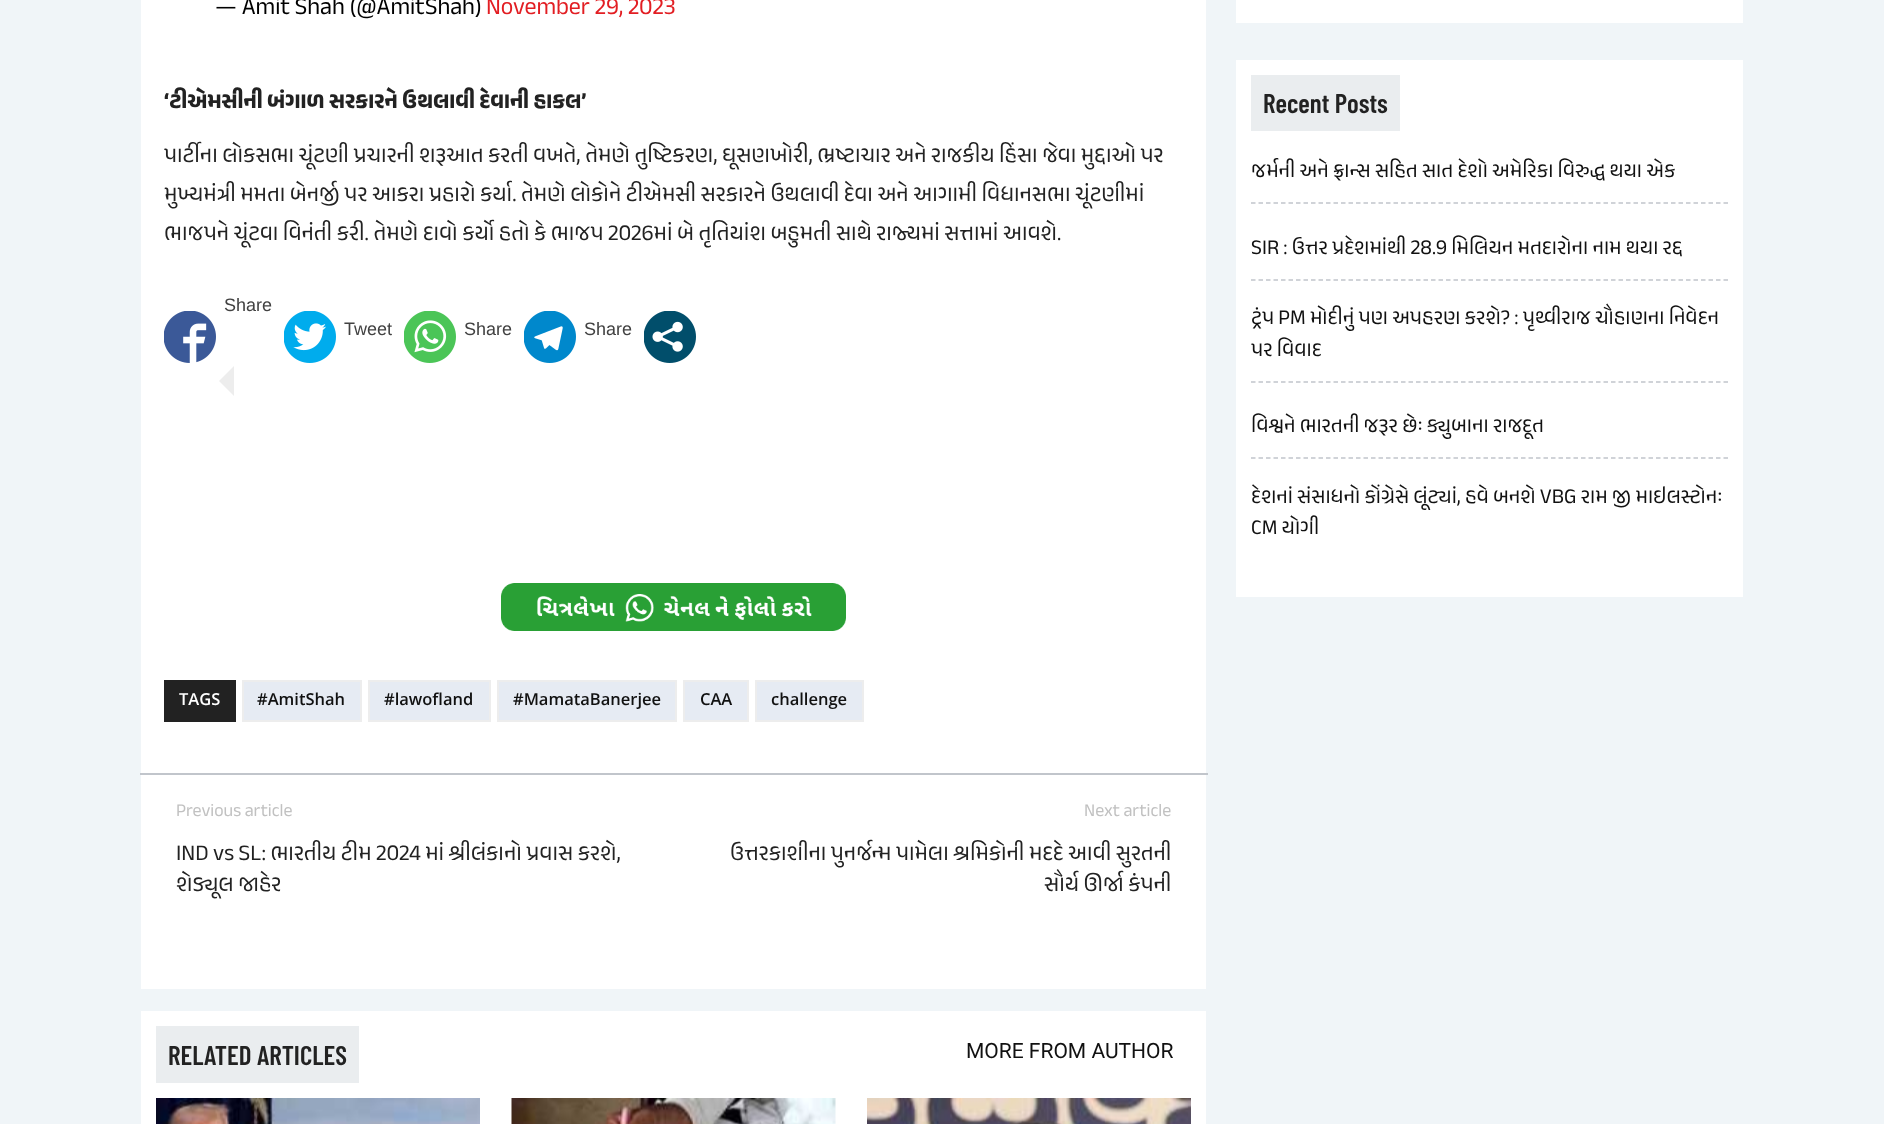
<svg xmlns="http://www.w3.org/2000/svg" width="1884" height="1124">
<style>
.a{font:24px Anek Gujarati;fill:#000}
.b{font:24px Anek Gujarati;fill:#e21e23}
.c{font:bold 22.5px Anek Gujarati;fill:#222}
.d{font:22.5px Anek Gujarati;fill:#222}
.e{font:18px Liberation Sans;fill:#424242}
.f{font:600 16.5px Open Sans;fill:#fff}
.g{font:600 16.5px Open Sans;fill:#111}
.h{font:18px Anek Gujarati;fill:#c1c1c1}
.i{font:600 27px Barlow Condensed;fill:#222}
.j{font:21px Roboto;fill:#111}
.k{font:21px Anek Gujarati;fill:#111}
</style>
<rect width="100%" height="100%" fill="#f0f5f8"/>
<path fill="#fff" d="M141 0h1065v989H141z"/>
<path fill="#ededed" d="M234 366v30l-15-15z"/>
<image href="1.png" x="164" y="311" width="52" height="52"/>
<image href="2.png" x="284" y="311" width="52" height="52"/>
<image href="3.png" x="404" y="311" width="52" height="52"/>
<image href="4.png" x="524" y="311" width="52" height="52"/>
<image href="5.png" x="644" y="311" width="52" height="52"/>
<image href="6.png" x="501" y="583" width="345" height="48"/>
<path fill="#222" d="M164 680h72v42H164z"/>
<path fill="#e6ebf3" stroke="#ededed" stroke-width="2" d="M243 681h118v40H243z"/>
<path fill="#e6ebf3" stroke="#ededed" stroke-width="2" d="M369 681h121v40H369z"/>
<path fill="#e6ebf3" stroke="#ededed" stroke-width="2" d="M498 681h178v40H498z"/>
<path fill="#e6ebf3" stroke="#ededed" stroke-width="2" d="M684 681h64v40H684z"/>
<path fill="#e6ebf3" stroke="#ededed" stroke-width="2" d="M756 681h107v40H756z"/>
<path fill="#c1c5cb" d="M140 773h1068v2H140z"/>
<path fill="#fff" d="M141 1011h1065v113H141z"/>
<path fill="#eaedef" d="M156 1026h203v57H156z"/>
<image href="7.png" x="156" y="1098" width="324" height="26"/>
<image href="8.png" x="511" y="1098" width="325" height="26"/>
<image href="9.png" x="867" y="1098" width="324" height="26"/>
<path fill="#fff" d="M1236 0h507v23H1236z"/>
<path fill="#fff" d="M1236 60h507v537H1236z"/>
<path fill="#eaedef" d="M1251 75h149v56H1251z"/>
<path fill="none" stroke="#c1c5cb" stroke-width="1.5" stroke-dasharray="4.5 3" d="M1251 203h477"/>
<path fill="none" stroke="#c1c5cb" stroke-width="1.5" stroke-dasharray="4.5 3" d="M1251 280h477"/>
<path fill="none" stroke="#c1c5cb" stroke-width="1.5" stroke-dasharray="4.5 3" d="M1251 382h477"/>
<path fill="none" stroke="#c1c5cb" stroke-width="1.5" stroke-dasharray="4.5 3" d="M1251 458h477"/>
<text class="a" x="215" y="14">— Amit Shah (@AmitShah)</text>
<text class="b" x="486" y="14">November 29, 2023</text>
<text class="c" x="164" y="108">‘ટીએમસીની બંગાળ સરકારને ઉથલાવી દેવાની હાકલ’</text>
<text class="d" x="164" y="162">પાર્ટીના લોકસભા ચૂંટણી પ્રચારની શરૂઆત કરતી વખતે, તેમણે તુષ્ટિકરણ, ઘૂસણખોરી, ભ્રષ્ટાચાર અને રાજકીય હિંસા જેવા મુદ્દાઓ પર</text>
<text class="d" x="164" y="201">મુખ્યમંત્રી મમતા બેનર્જી પર આકરા પ્રહારો કર્યા. તેમણે લોકોને ટીએમસી સરકારને ઉથલાવી દેવા અને આગામી વિધાનસભા ચૂંટણીમાં</text>
<text class="d" x="164" y="240">ભાજપને ચૂંટવા વિનંતી કરી. તેમણે દાવો કર્યો હતો કે ભાજપ 2026માં બે તૃતિયાંશ બહુમતી સાથે રાજ્યમાં સત્તામાં આવશે.</text>
<text class="e" x="224" y="311">Share</text>
<text class="e" x="344" y="335">Tweet</text>
<text class="e" x="464" y="335">Share</text>
<text class="e" x="584" y="335">Share</text>
<text class="f" x="179" y="705">TAGS</text>
<text class="g" x="257" y="705">#AmitShah</text>
<text class="g" x="384" y="705">#lawofland</text>
<text class="g" x="513" y="705">#MamataBanerjee</text>
<text class="g" x="700" y="705">CAA</text>
<text class="g" x="771" y="705">challenge</text>
<text class="h" x="176" y="816">Previous article</text>
<text class="d" x="176" y="860">IND vs SL: ભારતીય ટીમ 2024 માં શ્રીલંકાનો પ્રવાસ કરશે,</text>
<text class="d" x="176" y="891">શેડ્યૂલ જાહેર</text>
<text class="h" x="1084" y="816">Next article</text>
<text class="d" x="730" y="860">ઉત્તરકાશીના પુનર્જન્મ પામેલા શ્રમિકોની મદદે આવી સુરતની</text>
<text class="d" x="1044" y="891">સૌર્ય ઊર્જા કંપની</text>
<text class="i" x="168" y="1065">RELATED ARTICLES</text>
<text class="j" x="966" y="1058">MORE FROM AUTHOR</text>
<text class="i" x="1263" y="113">Recent Posts</text>
<text class="k" x="1251" y="177">જર્મની અને ફ્રાન્સ સહિત સાત દેશો અમેરિકા વિરુદ્ધ થયા એક</text>
<text class="k" x="1251" y="254">SIR : ઉત્તર પ્રદેશમાંથી 28.9 મિલિયન મતદારોના નામ થયા રદ્દ</text>
<text class="k" x="1251" y="324">ટ્રંપ PM મોદીનું પણ અપહરણ કરશે? : પૃથ્વીરાજ ચૌહાણના નિવેદન</text>
<text class="k" x="1251" y="356">પર વિવાદ</text>
<text class="k" x="1251" y="432">વિશ્વને ભારતની જરૂર છેઃ ક્યુબાના રાજદૂત</text>
<text class="k" x="1251" y="503">દેશનાં સંસાધનો કોંગ્રેસે લૂંટ્યાં, હવે બનશે VBG રામ જી માઇલસ્ટોનઃ</text>
<text class="k" x="1251" y="534">CM યોગી</text>
</svg>
